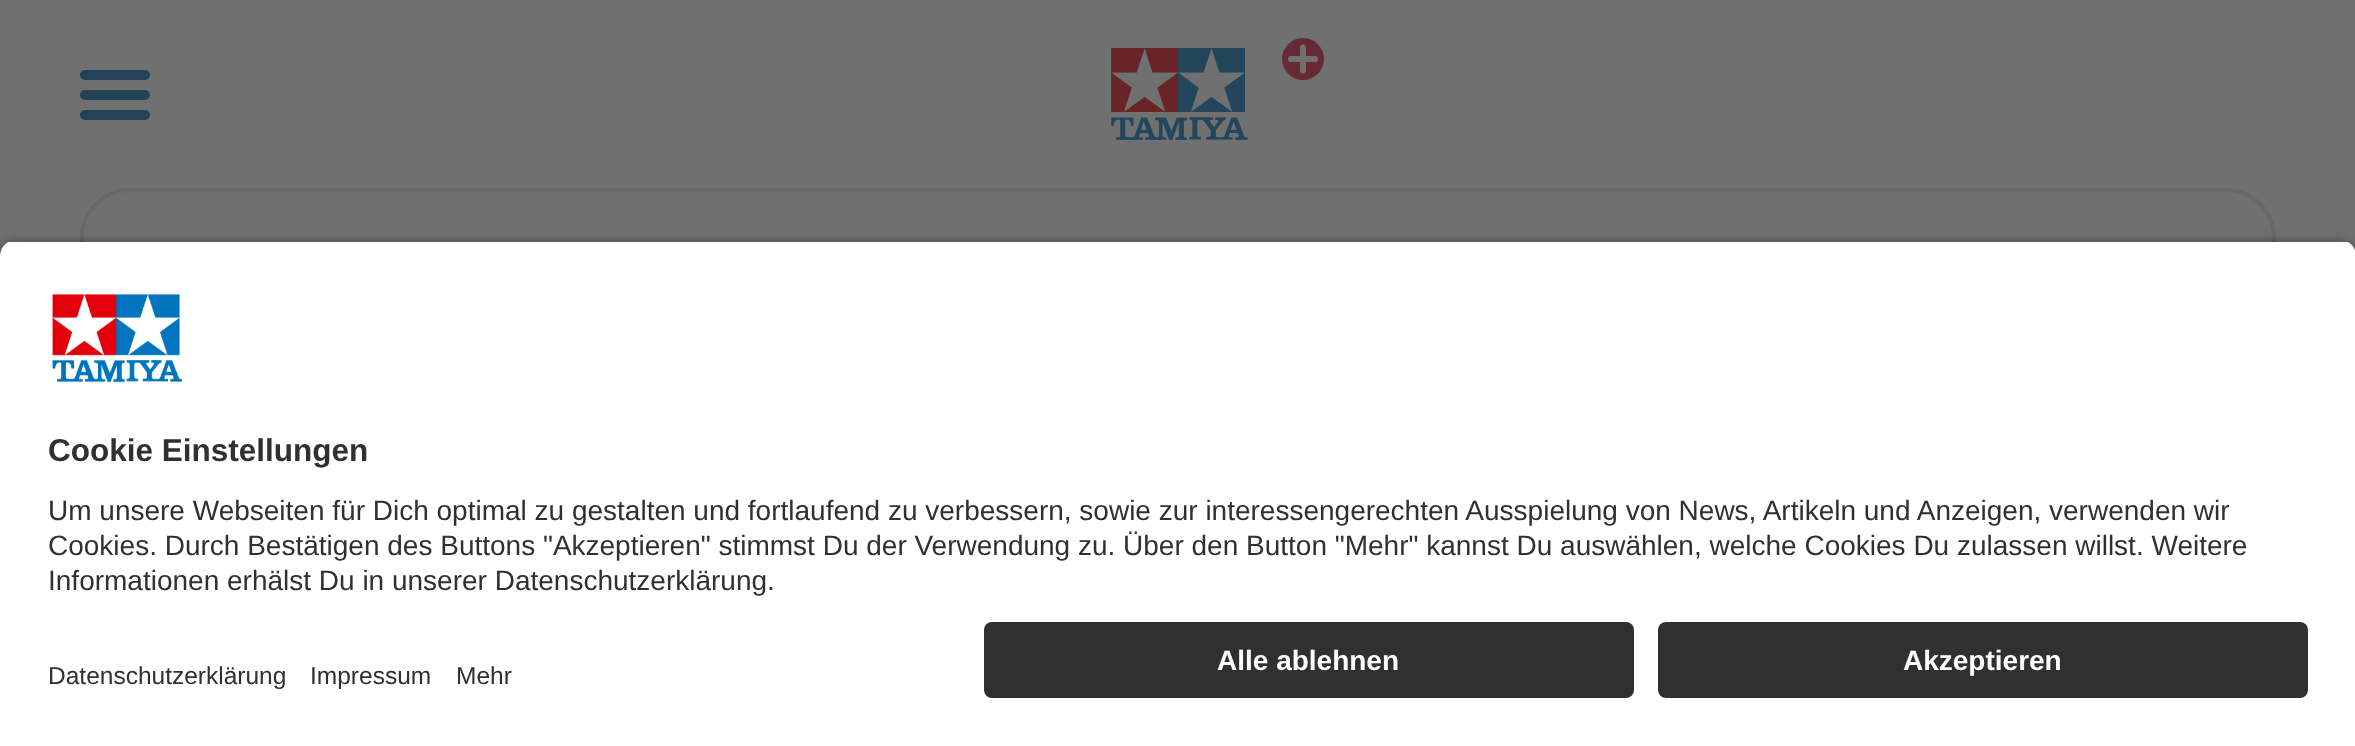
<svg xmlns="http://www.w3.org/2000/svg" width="2355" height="746">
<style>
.a{font:bold 31.5px Liberation Sans;fill:#303030}
.b{font:28px Liberation Sans;fill:#303030}
.c{font:24.5px Liberation Sans;fill:#303030}
.d{font:bold 28px Liberation Sans;fill:#fff}
</style>
<defs>
<clipPath id="clip1"><path d="M16 240h2324c9 0 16 7 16 16v350h-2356v-350c0-9 7-16 16-16z"/></clipPath>
</defs>
<rect width="100%" height="100%" fill="#707070"/>
<rect fill="#244359" x="80" y="70" width="70" height="10" rx="5"/>
<rect fill="#244359" x="80" y="90" width="70" height="10" rx="5"/>
<rect fill="#244359" x="80" y="110" width="70" height="10" rx="5"/>
<image href="1.png" x="1111" y="48" width="137" height="92"/>
<circle fill="#652a33" cx="1303" cy="59" r="21"/>
<rect fill="#707070" x="1288" y="56" width="30" height="6" rx="3"/>
<path fill="#707070" d="M1306 47.5v23c0 2-1.5 3-3 3c-1.5 0-3-1-3-3v-23c0-2 1.5-3 3-3c1.5 0 3 1 3 3z"/>
<rect fill="none" stroke="#686868" stroke-width="4" x="82" y="190" width="2192" height="96" rx="48"/>
<rect fill="#000000cc" filter="blur(7px)" y="246" width="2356" height="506" rx="16"/>
<g clip-path="url(#clip1)">
<path fill="#fff" d="M0 242h2355v364H0z"/>
</g>
<image href="2.png" x="52" y="294" width="131" height="89"/>
<path fill="#fff" d="M0 606h2355v140H0z"/>
<rect fill="#303030" x="984" y="622" width="650" height="76" rx="8"/>
<rect fill="#303030" x="1658" y="622" width="650" height="76" rx="8"/>
<text class="a" x="48" y="461">Cookie Einstellungen</text>
<text class="b" x="48" y="520">Um unsere Webseiten für Dich optimal zu gestalten und fortlaufend zu verbessern, sowie zur interessengerechten Ausspielung von News, Artikeln und Anzeigen, verwenden wir</text>
<text class="b" x="48" y="555">Cookies. Durch Bestätigen des Buttons "Akzeptieren" stimmst Du der Verwendung zu. Über den Button "Mehr" kannst Du auswählen, welche Cookies Du zulassen willst. Weitere</text>
<text class="b" x="48" y="590">Informationen erhälst Du in unserer Datenschutzerklärung.</text>
<text class="c" x="48" y="684">Datenschutzerklärung</text>
<text class="c" x="310" y="684">Impressum</text>
<text class="c" x="456" y="684">Mehr</text>
<text class="d" x="1217" y="670">Alle ablehnen</text>
<text class="d" x="1903" y="670">Akzeptieren</text>
</svg>
